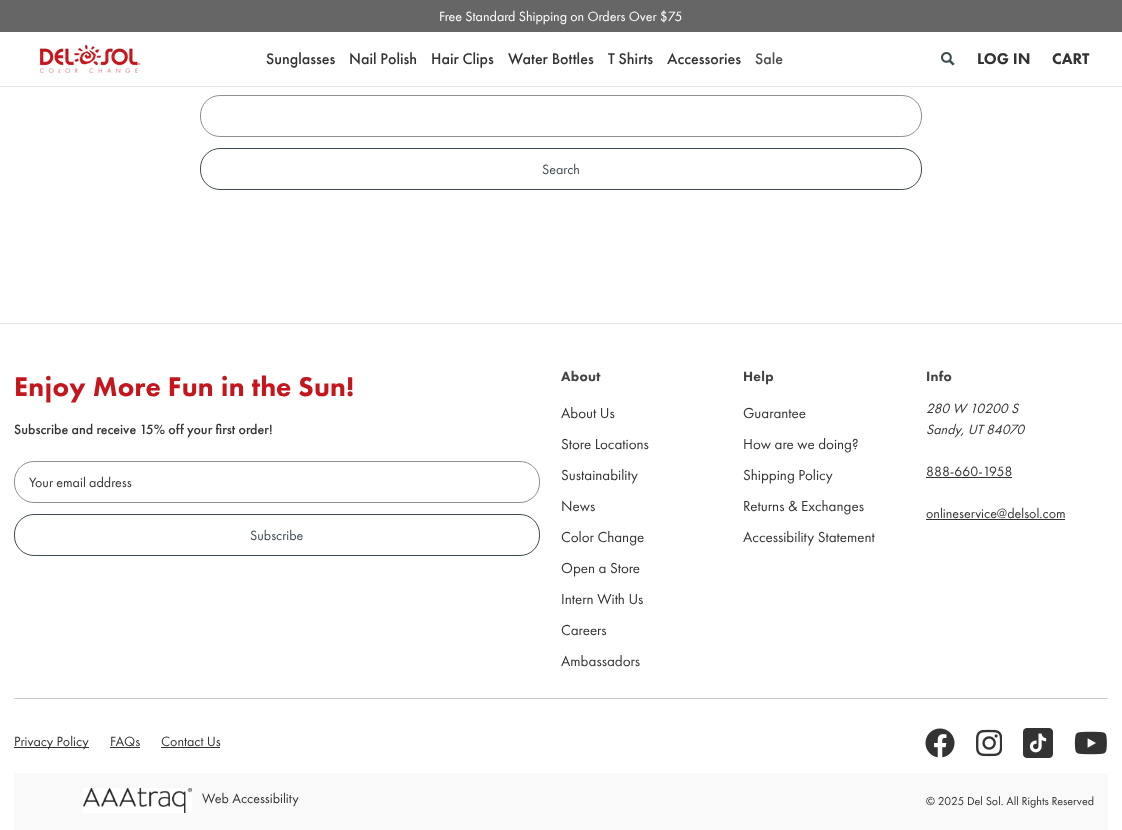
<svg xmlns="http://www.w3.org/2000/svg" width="1122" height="830">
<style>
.a{font:14px Futura PT;fill:#fff}
.b{font:500 16px Futura PT;fill:#333}
.c{font:500 16px Futura PT;fill:#4d4d4d}
.d{font:900 16px Futura PT;fill:#333}
.e{font:14px Futura PT;fill:#3f4b50}
.f{font:900 28px Futura PT;letter-spacing:0.25px;fill:#c4161c}
.g{font:500 14px Futura PT;fill:#333}
.h{font:14px Futura PT;fill:#333}
.i{font:900 14px Futura PT;letter-spacing:0.25px;fill:#444}
.j{font:15px Futura PT;fill:#333}
.k{font:italic 14px Futura PT;fill:#333}
.l{font:12px Futura PT;fill:#333}
</style>
<rect width="100%" height="100%" fill="#fff"/>
<path fill="#666" d="M0 0h1122v32H0z"/>
<path fill="#e5e5e5" d="M0 86h1122v1H0z"/>
<image href="1.png" x="40" y="45" width="100" height="28"/>
<image href="2.png" x="941" y="52" width="14" height="14"/>
<rect fill="none" stroke="#8f8f8f" x="200.5" y="95.5" width="721" height="41" rx="19.5"/>
<rect fill="none" stroke="#3f4b50" x="200.5" y="148.5" width="721" height="41" rx="19.5"/>
<path fill="#e5e5e5" d="M0 323h1122v1H0z"/>
<rect fill="none" stroke="#8f8f8f" x="14.5" y="461.5" width="525" height="41" rx="19.5"/>
<rect fill="none" stroke="#3f4b50" x="14.5" y="514.5" width="525" height="41" rx="19.5"/>
<path fill="#333" d="M926 477h86v1H926z"/>
<path fill="#333" d="M926 519h139v1H926z"/>
<path fill="#c9ccdb" d="M14 698h1094v1H14z"/>
<path fill="#333" d="M14 747h75v1H14z"/>
<path fill="#333" d="M110 747h30v1H110z"/>
<path fill="#333" d="M161 747h59v1H161z"/>
<image href="3.png" x="925" y="728" width="30" height="30"/>
<image href="4.png" x="976" y="729" width="26" height="28"/>
<image href="5.png" x="1023" y="728" width="30" height="30"/>
<image href="6.png" x="1074" y="731" width="33" height="24"/>
<path fill="#f9f9f9" d="M14 773h1094v57H14z"/>
<image href="7.png" x="83" y="788" width="109" height="25"/>
<text class="a" x="439" y="21">Free Standard Shipping on Orders Over $75</text>
<text class="b" x="266" y="64">Sunglasses</text>
<text class="b" x="349" y="64">Nail Polish</text>
<text class="b" x="431" y="64">Hair Clips</text>
<text class="b" x="508" y="64">Water Bottles</text>
<text class="b" x="608" y="64">T Shirts</text>
<text class="b" x="667" y="64">Accessories</text>
<text class="c" x="755" y="64">Sale</text>
<text class="d" x="977" y="64">LOG IN</text>
<text class="d" x="1052" y="64">CART</text>
<text class="e" x="542" y="174">Search</text>
<text class="f" x="14" y="396">Enjoy More Fun in the Sun!</text>
<text class="g" x="14" y="434">Subscribe and receive 15% off your first order!</text>
<text class="h" x="29" y="487">Your email address</text>
<text class="e" x="250" y="540">Subscribe</text>
<text class="i" x="561" y="381">About</text>
<text class="j" x="561" y="418">About Us</text>
<text class="j" x="561" y="449">Store Locations</text>
<text class="j" x="561" y="480">Sustainability</text>
<text class="j" x="561" y="511">News</text>
<text class="j" x="561" y="542">Color Change</text>
<text class="j" x="561" y="573">Open a Store</text>
<text class="j" x="561" y="604">Intern With Us</text>
<text class="j" x="561" y="635">Careers</text>
<text class="j" x="561" y="666">Ambassadors</text>
<text class="i" x="743" y="381">Help</text>
<text class="j" x="743" y="418">Guarantee</text>
<text class="j" x="743" y="449">How are we doing?</text>
<text class="j" x="743" y="480">Shipping Policy</text>
<text class="j" x="743" y="511">Returns &amp; Exchanges</text>
<text class="j" x="743" y="542">Accessibility Statement</text>
<text class="i" x="926" y="381">Info</text>
<text class="k" x="926" y="413">280 W 10200 S</text>
<text class="k" x="926" y="434">Sandy, UT 84070</text>
<text class="h" x="926" y="476">888-660-1958</text>
<text class="h" x="926" y="518">onlineservice@delsol.com</text>
<text class="h" x="14" y="746">Privacy Policy</text>
<text class="h" x="110" y="746">FAQs</text>
<text class="h" x="161" y="746">Contact Us</text>
<text class="h" x="202" y="803">Web Accessibility</text>
<text class="l" x="926" y="805">© 2025 Del Sol. All Rights Reserved</text>
</svg>
